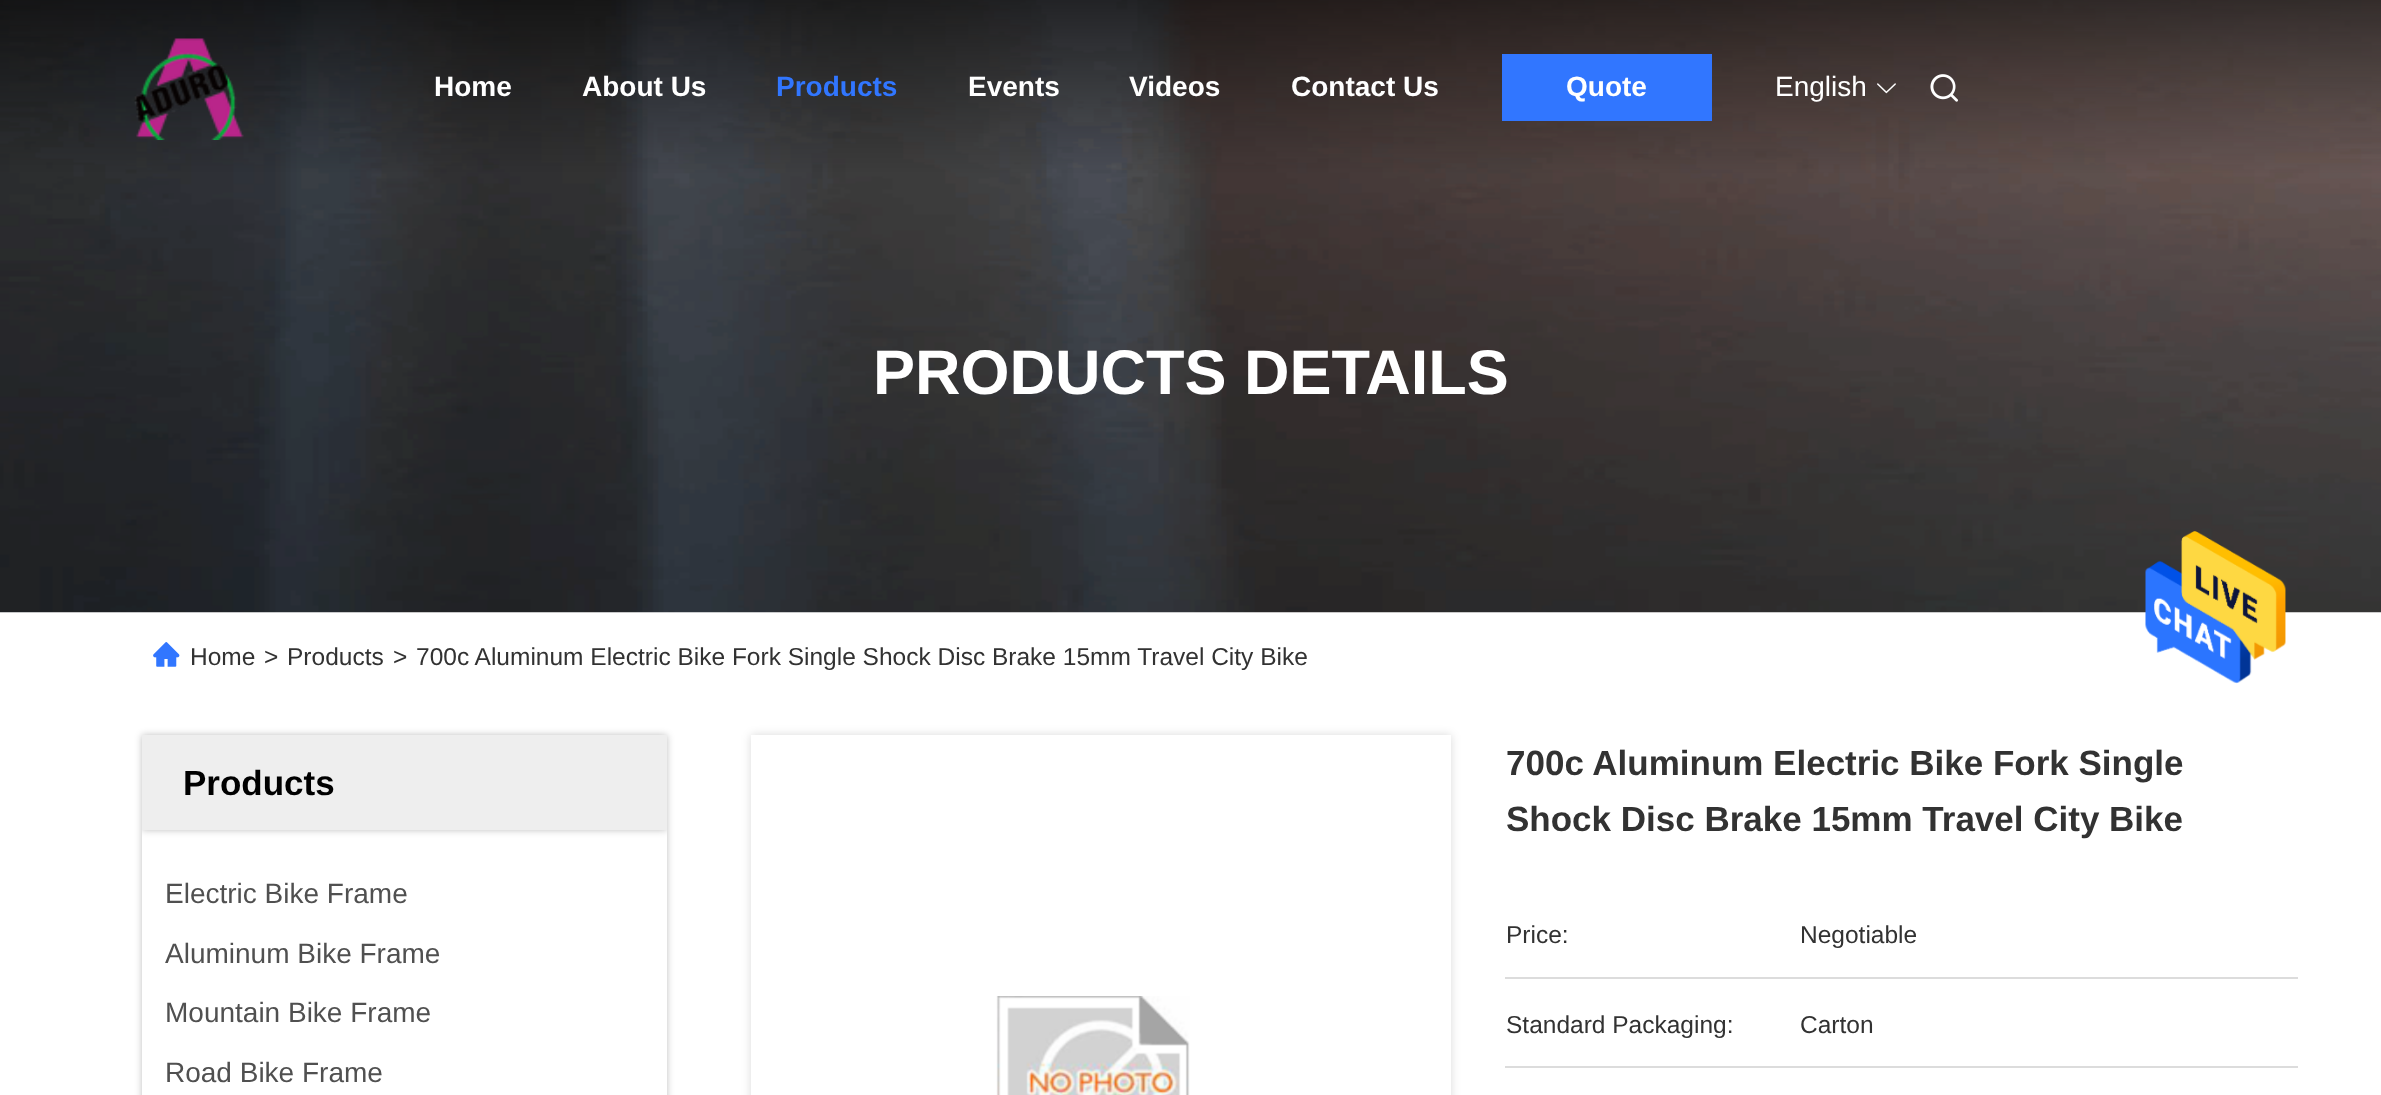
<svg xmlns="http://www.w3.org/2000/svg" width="2381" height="1095">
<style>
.a{font:bold 28px Liberation Sans;fill:#fff}
.b{font:bold 28px Liberation Sans;fill:#3176ff}
.c{font:28px Liberation Sans;fill:#fff}
.d{font:bold 63px Liberation Sans;fill:#fff}
.e{font:24.5px Liberation Sans;fill:#323232}
.f{font:bold 35px Liberation Sans;fill:#000}
.g{font:28px Liberation Sans;fill:#505050}
.h{font:bold 35px Liberation Sans;fill:#323232}
</style>
<defs>
<clipPath id="clip1"><path d="M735 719h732v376h-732zm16 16h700v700h-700z" clip-rule="evenodd"/></clipPath>
</defs>
<rect width="100%" height="100%" fill="#fff"/>
<image href="4.png" x="0" y="0" width="2381" height="613"/>
<image href="1.png" x="134" y="38" width="110" height="102"/>
<path fill="#3176ff" d="M1502 54h210v67H1502z"/>
<image href="2.png" x="1877" y="83" width="19" height="11"/>
<image href="3.png" x="1930" y="74" width="28" height="28"/>
<image href="5.png" x="153" y="642" width="27" height="25"/>
<path fill="#00000040" filter="blur(3.5px)" d="M142 830h525v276H142z"/>
<path fill="#fff" d="M142 830h525v265H142z"/>
<path fill="#00000040" filter="blur(3.5px)" d="M142 735h525v95H142z"/>
<path fill="#eee" d="M142 735h525v95H142z"/>
<g clip-path="url(#clip1)">
<path fill="#00000026" filter="blur(5px)" d="M751 735h700v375H751z"/>
</g>
<image href="6.png" x="996" y="996" width="194" height="99"/>
<path fill="#dcdcdc" d="M1505 977h793v2H1505z"/>
<path fill="#dcdcdc" d="M1505 1066h793v2H1505z"/>
<image href="7.png" x="2145" y="531" width="141" height="153"/>
<text class="a" x="434" y="96">Home</text>
<text class="a" x="582" y="96">About Us</text>
<text class="b" x="776" y="96">Products</text>
<text class="a" x="968" y="96">Events</text>
<text class="a" x="1129" y="96">Videos</text>
<text class="a" x="1291" y="96">Contact Us</text>
<text class="a" x="1566" y="96">Quote</text>
<text class="c" x="1775" y="96">English</text>
<text class="d" x="873" y="394">PRODUCTS DETAILS</text>
<text class="e" x="190" y="665">Home</text>
<text class="e" x="264" y="665">&gt;</text>
<text class="e" x="287" y="665">Products</text>
<text class="e" x="393" y="665">&gt;</text>
<text class="e" x="416" y="665">700c Aluminum Electric Bike Fork Single Shock Disc Brake 15mm Travel City Bike</text>
<text class="f" x="183" y="795">Products</text>
<text class="g" x="165" y="903">Electric Bike Frame</text>
<text class="g" x="165" y="963">Aluminum Bike Frame</text>
<text class="g" x="165" y="1022">Mountain Bike Frame</text>
<text class="g" x="165" y="1082">Road Bike Frame</text>
<text class="h" x="1506" y="775">700c Aluminum Electric Bike Fork Single</text>
<text class="h" x="1506" y="831">Shock Disc Brake 15mm Travel City Bike</text>
<text class="e" x="1506" y="943">Price:</text>
<text class="e" x="1800" y="943">Negotiable</text>
<text class="e" x="1506" y="1033">Standard Packaging:</text>
<text class="e" x="1800" y="1033">Carton</text>
</svg>
